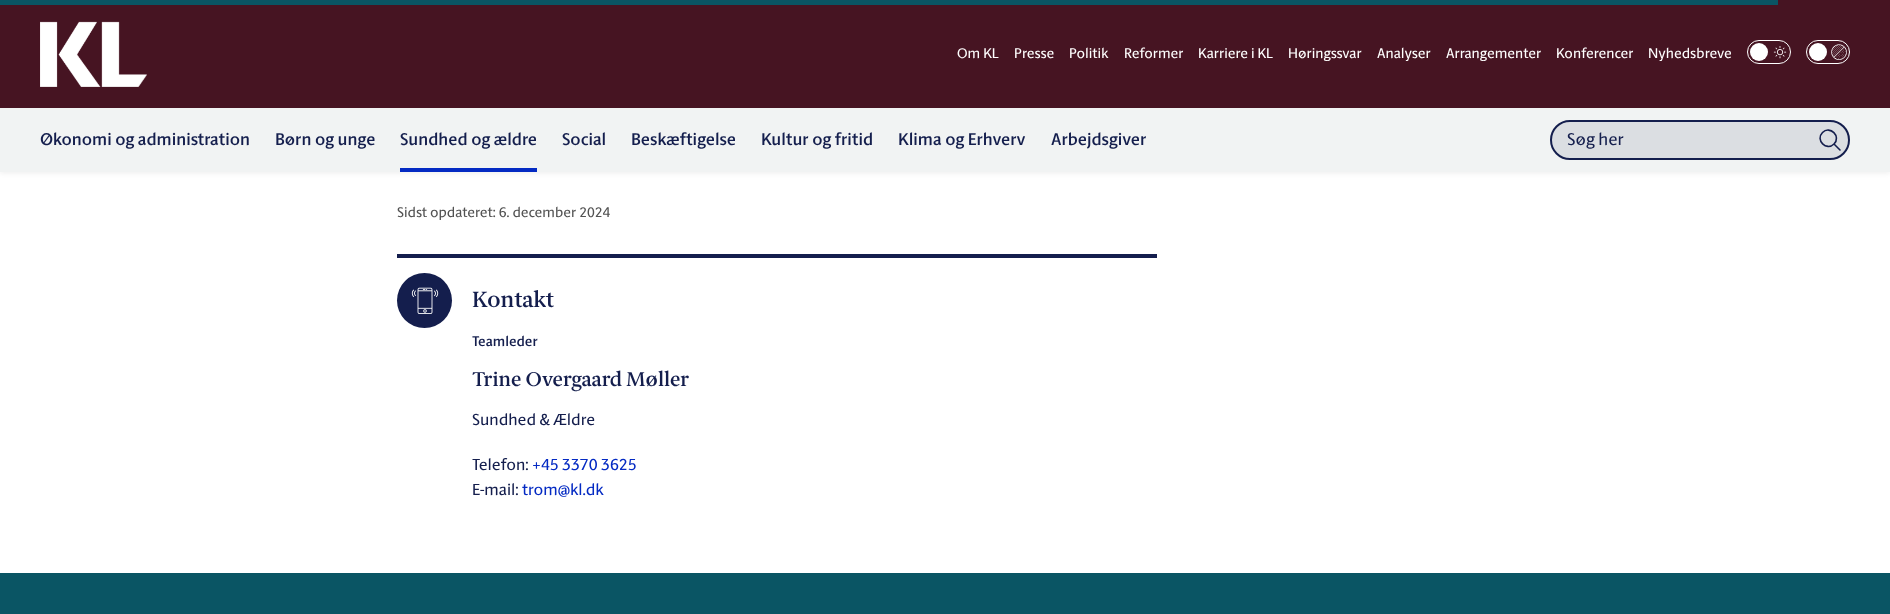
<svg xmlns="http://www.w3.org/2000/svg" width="1890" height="614">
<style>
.a{font:14px 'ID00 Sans';fill:#fff}
.b{font:600 17px 'ID00 Sans';fill:#141e4d}
.c{font:17px 'ID00 Sans';fill:#141e4d}
.d{font:14px 'ID00 Sans';fill:#525252}
.e{font:600 22px 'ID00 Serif';fill:#141e4d}
.f{font:600 14px 'ID00 Sans';fill:#141e4d}
.g{font:600 20px 'ID00 Serif';fill:#141e4d}
.h{font:16px 'ID00 Sans';fill:#141e4d}
.i{font:16px 'ID00 Sans';fill:#042ac3}
</style>
<rect width="100%" height="100%" fill="#fff"/>
<path fill="#0000000d" filter="blur(2px)" d="M0 110h1890v64H0z"/>
<path fill="#461422" d="M0 0h1890v108H0z"/>
<image href="1.png" x="40" y="21" width="107" height="66"/>
<rect fill="none" stroke="#fff" x="1747.5" y="40.5" width="43" height="23" rx="11.5"/>
<circle fill="#fff" cx="1759" cy="52" r="9"/>
<image href="2.png" x="1773" y="46" width="14" height="13"/>
<rect fill="none" stroke="#fff" x="1806.5" y="40.5" width="43" height="23" rx="11.5"/>
<image href="3.png" x="1811" y="57" width="14" height="4"/>
<circle fill="#fff" cx="1818" cy="52" r="9"/>
<image href="4.png" x="1831" y="44" width="16" height="16"/>
<path fill="#f1f3f3" d="M0 108h1890v64H0z"/>
<path fill="#042ac3" d="M400 168h137v4H400z"/>
<rect fill="#dbdee2" stroke="#141e4d" stroke-width="2" x="1551" y="121" width="298" height="38" rx="19"/>
<path fill="none" stroke="#141e4d" stroke-width="1.6" stroke-linecap="round" stroke-linejoin="round" d="M1840 150l-6-6m0 0c7.5-7.5-4-19-11.5-11.5c-7.5 7.5 4 19 11.5 11.5z"/>
<path fill="#0a5564" d="M0 0h1778v5H0z"/>
<path fill="#141e4d" d="M397 254h760v4H397z"/>
<circle fill="#141e4d" cx="424.5" cy="300.5" r="27.5"/>
<image href="5.png" x="411" y="287" width="28" height="27"/>
<path fill="#0a5564" d="M0 573h1890v41H0z"/>
<text class="a" x="957" y="58">Om KL</text>
<text class="a" x="1014" y="58">Presse</text>
<text class="a" x="1069" y="58">Politik</text>
<text class="a" x="1124" y="58">Reformer</text>
<text class="a" x="1198" y="58">Karriere i KL</text>
<text class="a" x="1288" y="58">Høringssvar</text>
<text class="a" x="1377" y="58">Analyser</text>
<text class="a" x="1446" y="58">Arrangementer</text>
<text class="a" x="1556" y="58">Konferencer</text>
<text class="a" x="1648" y="58">Nyhedsbreve</text>
<text class="b" x="40" y="145">Økonomi og administration</text>
<text class="b" x="275" y="145">Børn og unge</text>
<text class="b" x="400" y="145">Sundhed og ældre</text>
<text class="b" x="562" y="145">Social</text>
<text class="b" x="631" y="145">Beskæftigelse</text>
<text class="b" x="761" y="145">Kultur og fritid</text>
<text class="b" x="898" y="145">Klima og Erhverv</text>
<text class="b" x="1051" y="145">Arbejdsgiver</text>
<text class="c" x="1567" y="145">Søg her</text>
<text class="d" x="397" y="217">Sidst opdateret: 6. december 2024</text>
<text class="e" x="472" y="307">Kontakt</text>
<text class="f" x="472" y="346">Teamleder</text>
<text class="g" x="472" y="386">Trine Overgaard Møller</text>
<text class="h" x="472" y="425">Sundhed &amp; Ældre</text>
<text class="h" x="472" y="470">Telefon:</text>
<text class="i" x="532" y="470">+45 3370 3625</text>
<text class="h" x="472" y="495">E-mail:</text>
<text class="i" x="522" y="495">trom@kl.dk</text>
</svg>
